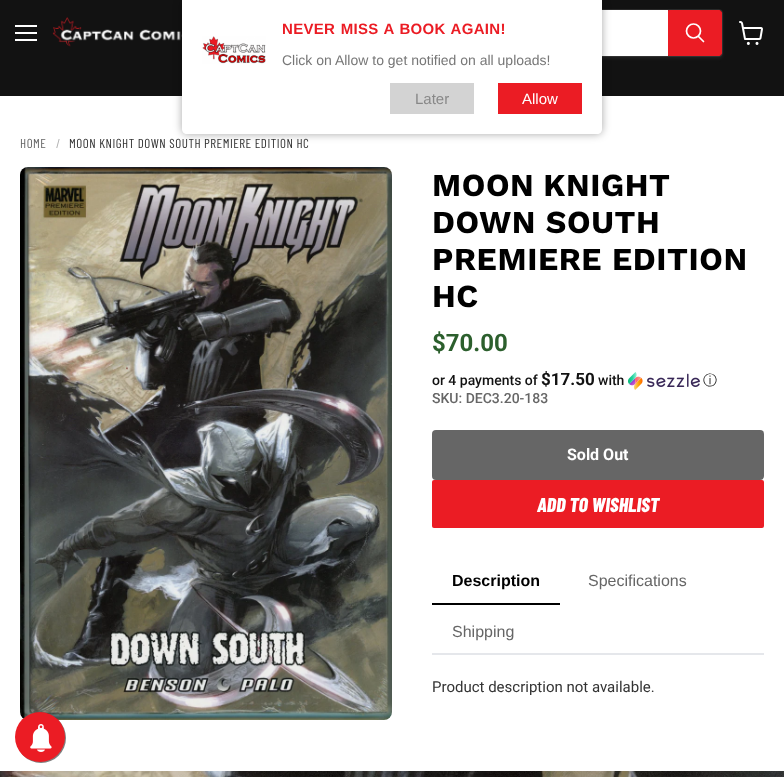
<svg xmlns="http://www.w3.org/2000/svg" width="784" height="777">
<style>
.a{font:bold 15px Liberation Sans;letter-spacing:0.3px;fill:#eb1c24}
.b{font:14px Liberation Sans;fill:#777}
.c{font:15px Liberation Sans;fill:#888}
.d{font:15px Liberation Sans;fill:#fff}
.e{font:13px Barlow Condensed;letter-spacing:0.5px;fill:#666}
.f{font:13px Barlow Condensed;letter-spacing:0.5px;fill:#b3b3b3}
.g{font:13px Barlow Condensed;letter-spacing:0.5px;fill:#333}
.h{font:bold 32px Work Sans;letter-spacing:0.6px;fill:#000}
.i{font:bold 24px Roboto;fill:#2c5f2d}
.j{font:500 14px Roboto;fill:#121212}
.k{font:bold 17px Roboto;fill:#121212}
.l{font:500 14px WenQuanYi Zen Hei;fill:#121212}
.m{font:500 14px Roboto;fill:#666}
.n{font:bold 16px Roboto;fill:#fff}
.o{font:italic 800 20px Barlow Condensed;fill:#fff}
.p{font:bold 16px Liberation Sans;fill:#000}
.q{font:16px Liberation Sans;fill:#666}
.r{font:15px Roboto;fill:#333}
</style>
<rect width="100%" height="100%" fill="#fff"/>
<path fill="#121212" d="M0 0h784v96H0z"/>
<path fill="#fff" d="M15 25h22v2H15z"/>
<path fill="#fff" d="M15 32h22v2H15z"/>
<path fill="#fff" d="M15 39h22v2H15z"/>
<image href="1.png" x="52" y="17" width="130" height="30"/>
<rect fill="#8080801c" filter="blur(1.5px)" x="216" y="11" width="507" height="48" rx="4"/>
<rect fill="none" stroke="#80808033" x="216.5" y="9.5" width="506" height="47" rx="3.5"/>
<path fill="#fff" d="M602 10h66v46H602z"/>
<path fill="#eb1c24" stroke="#eb1c24" d="M668.5 10.5h50.5c1.5 0 2.5 1 2.5 2.5v40c0 1.5-1 2.5-2.5 2.5h-50.5z"/>
<path fill="none" stroke="#fff" stroke-width="1.7" stroke-linecap="round" d="M703.5 41.5l-5-5"/>
<circle fill="none" stroke="#fff" stroke-width="1.7" cx="693.5" cy="31" r="7"/>
<image href="2.png" x="739" y="21" width="24" height="24"/>
<rect fill="#00000059" filter="blur(4px)" x="182" width="420" height="134" rx="5"/>
<path fill="#fff" d="M182 0h420v129c0 3-2 5-5 5h-410c-3 0-5-2-5-5z"/>
<image href="3.png" x="202" y="36" width="64" height="28"/>
<path fill="#d3d3d3" d="M390 83h84v31H390z"/>
<path fill="#eb1c24" d="M498 83h84v31H498z"/>
<image href="4.png" x="20" y="167" width="372" height="553"/>
<image href="5.png" x="628" y="372" width="72" height="18"/>
<rect fill="#666" x="432" y="430" width="332" height="50" rx="4"/>
<rect fill="#eb1c24" x="432" y="480" width="332" height="48" rx="2"/>
<path fill="#e5e7eb" d="M432 653h332v2H432z"/>
<path fill="#000" d="M432 603h128v2H432z"/>
<image href="6.png" x="0" y="771" width="784" height="6"/>
<rect fill="#00000080" filter="blur(0.5px)" x="16" y="713" width="50" height="50" rx="25"/>
<circle fill="#eb1c24" cx="40" cy="737" r="25"/>
<image href="7.png" x="30" y="724" width="22" height="28"/>
<text class="a" x="282" y="34" word-spacing="1">NEVER MISS A BOOK AGAIN!</text>
<text class="b" x="282" y="65">Click on Allow to get notified on all uploads!</text>
<text class="c" x="415" y="104">Later</text>
<text class="d" x="522" y="104">Allow</text>
<text class="e" x="20" y="148">HOME</text>
<text class="f" x="56" y="148">/</text>
<text class="g" x="69" y="148">MOON KNIGHT DOWN SOUTH PREMIERE EDITION HC</text>
<text class="h" x="432" y="196" word-spacing="-1">MOON KNIGHT</text>
<text class="h" x="432" y="233">DOWN SOUTH</text>
<text class="h" x="432" y="270">PREMIERE EDITION</text>
<text class="h" x="432" y="307">HC</text>
<text class="i" x="432" y="351">$70.00</text>
<text class="j" x="432" y="385">or 4 payments of</text>
<text class="k" x="541" y="385">$17.50</text>
<text class="j" x="598" y="385">with</text>
<text class="l" x="703" y="385">ⓘ</text>
<text class="m" x="432" y="403">SKU: DEC3.20-183</text>
<text class="n" x="567" y="460">Sold Out</text>
<text class="o" x="537" y="512">ADD TO WISHLIST</text>
<text class="p" x="452" y="586">Description</text>
<text class="q" x="588" y="586">Specifications</text>
<text class="q" x="452" y="637">Shipping</text>
<text class="r" x="432" y="692">Product description not available.</text>
</svg>
